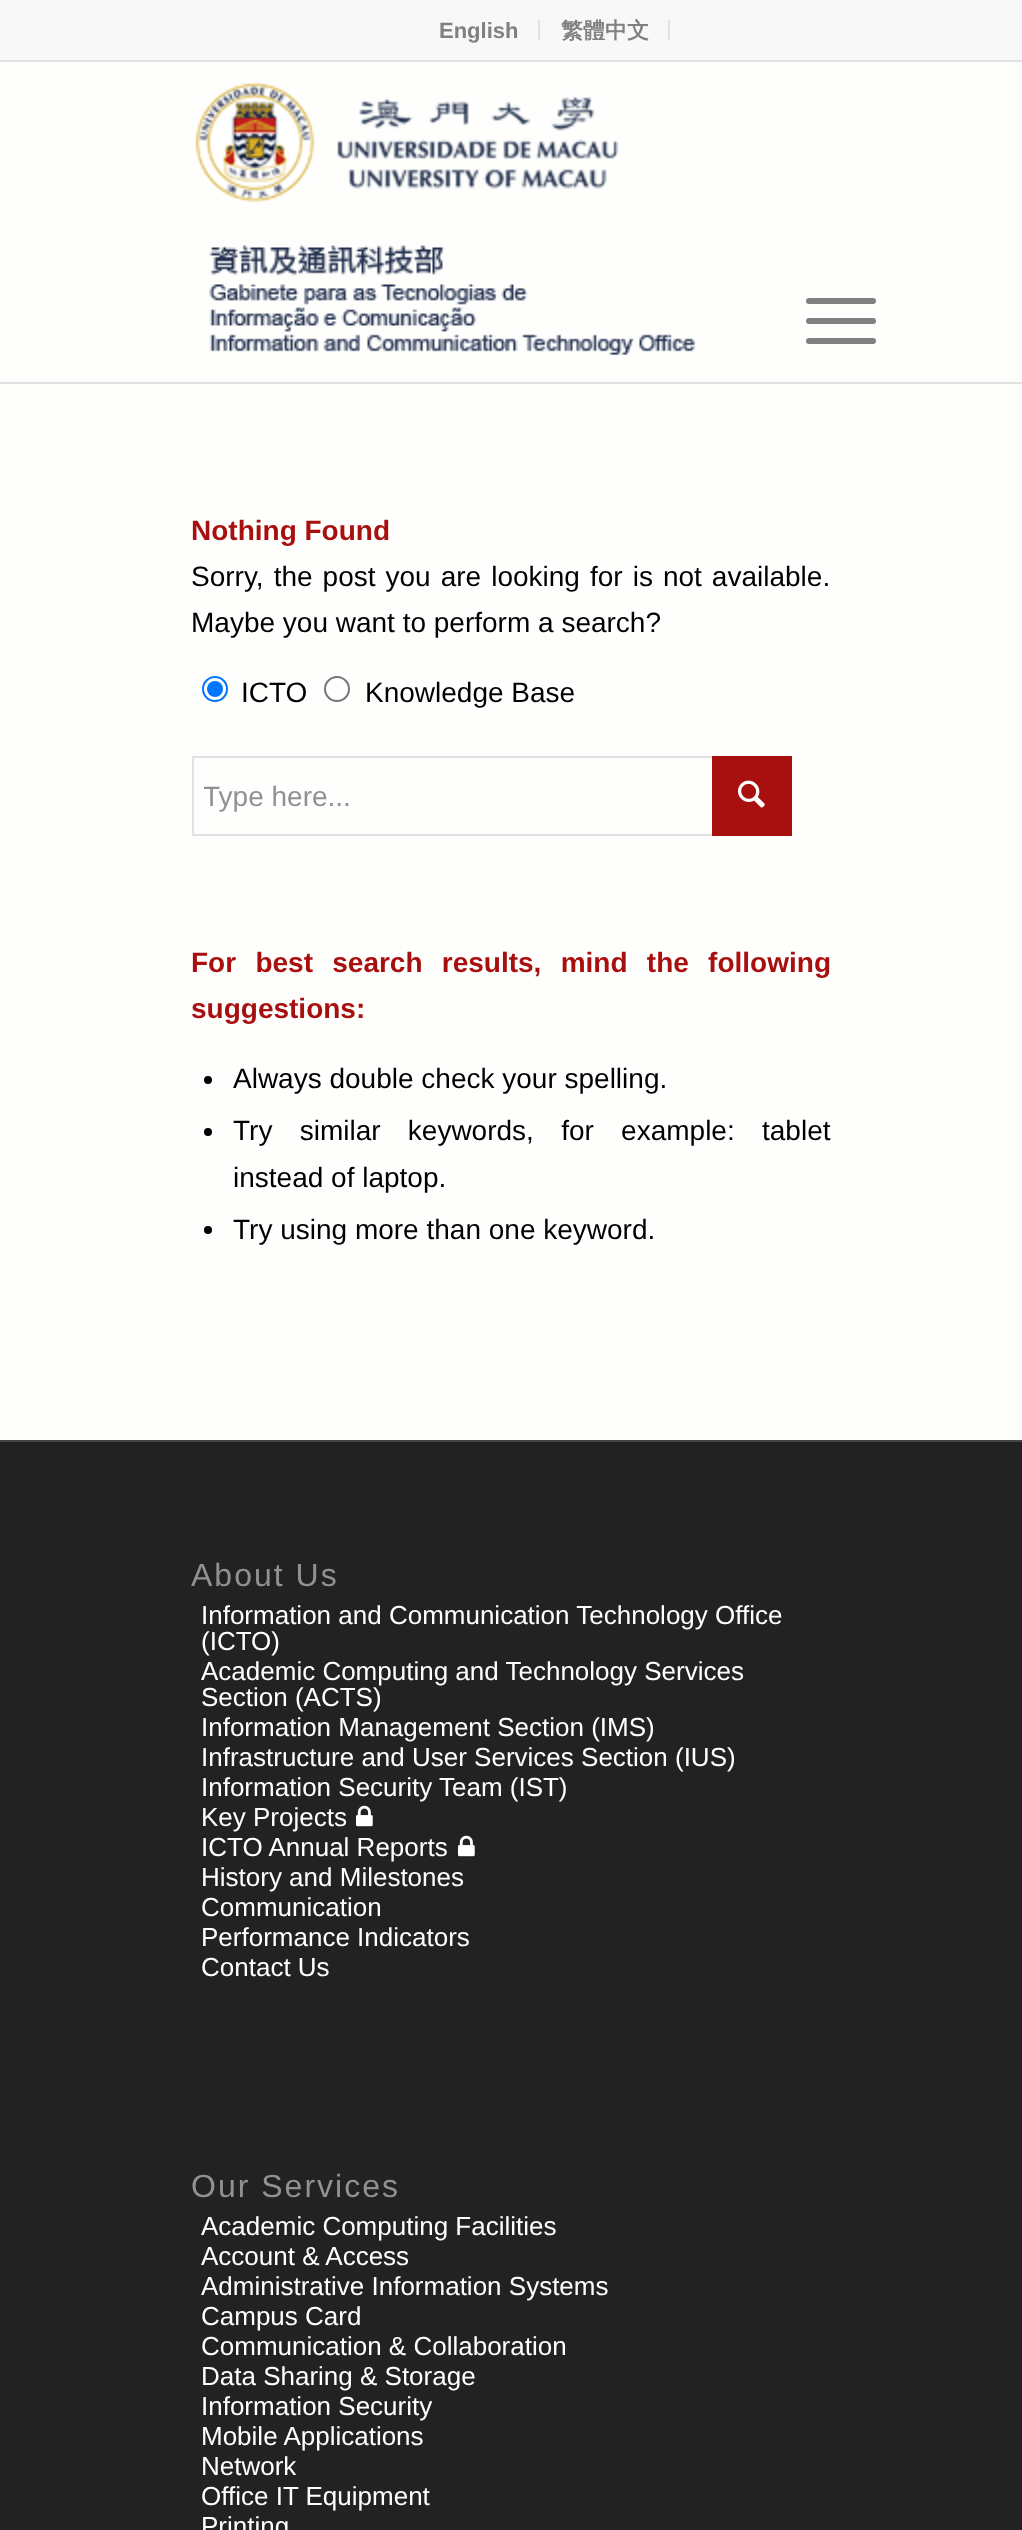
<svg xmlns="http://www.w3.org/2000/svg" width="1022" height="2530">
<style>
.a{font:bold 22px Liberation Sans;fill:#808080}
.b{font:bold 22px WenQuanYi Zen Hei;fill:#808080}
.c{font:bold 28px Liberation Sans;fill:#a81010}
.d{font:28px Liberation Sans;fill:#000}
.e{font:28px Liberation Sans;fill:#919191}
.f{font:32px Liberation Sans;letter-spacing:2px;fill:#919191}
.g{font:26px Liberation Sans;fill:#fff}
</style>
<defs>
<clipPath id="clip1"><path d="M204 780h492v32H204z"/></clipPath>
</defs>
<rect width="100%" height="100%" fill="#fefefd"/>
<path fill="#f8f8f8" d="M0 0h1022v60H0z"/>
<path fill="#e1e1e1" d="M0 60h1022v2H0z"/>
<path fill="#e1e1e1" d="M538 20h2v20H538z"/>
<path fill="#e1e1e1" d="M668 20h2v20H668z"/>
<path fill="#e1e1e1" d="M0 382h1022v2H0z"/>
<image href="1.png" x="195" y="81" width="424" height="122"/>
<image href="2.png" x="209" y="245" width="487" height="111"/>
<rect fill="#808080" x="806" y="318" width="70" height="6" rx="3"/>
<rect fill="#808080" x="806" y="298" width="70" height="6" rx="3"/>
<rect fill="#808080" x="806" y="338" width="70" height="6" rx="3"/>
<circle fill="none" stroke="#0075ff" stroke-width="2" cx="215" cy="689" r="12"/>
<circle fill="#0075ff" cx="215" cy="689" r="8"/>
<circle fill="none" stroke="#767676" stroke-width="2" cx="337" cy="689" r="12"/>
<path fill="none" stroke="#e1e1e1" stroke-width="2" d="M193 757h598v78H193z"/>
<path fill="#a81010" d="M712 756h80v80H712z"/>
<image href="3.png" x="738" y="780" width="27" height="28"/>
<circle fill="#000" cx="208" cy="1080" r="4"/>
<circle fill="#000" cx="208" cy="1132" r="4"/>
<circle fill="#000" cx="208" cy="1230" r="4"/>
<path fill="#222" d="M0 1442h1022v1088H0z"/>
<path fill="#444" d="M0 1440h1022v2H0z"/>
<image href="4.png" x="356" y="1805" width="17" height="22"/>
<image href="4.png" x="458" y="1835" width="17" height="22"/>
<text class="a" x="439" y="38">English</text>
<text class="b" x="561" y="38">繁體中文</text>
<text class="c" x="191" y="540">Nothing Found</text>
<text class="d" x="191" y="586" word-spacing="2.25">Sorry, the post you are looking for is not available.</text>
<text class="d" x="191" y="632">Maybe you want to perform a search?</text>
<text class="d" x="241" y="702">ICTO</text>
<text class="d" x="365" y="702">Knowledge Base</text>
<g clip-path="url(#clip1)">
<text class="e" x="203" y="806">Type here...</text>
</g>
<text class="c" x="191" y="972" word-spacing="11.5">For best search results, mind the following</text>
<text class="c" x="191" y="1018">suggestions:</text>
<text class="d" x="233" y="1088">Always double check your spelling.</text>
<text class="d" x="233" y="1140" word-spacing="19.5">Try similar keywords, for example: tablet</text>
<text class="d" x="233" y="1187">instead of laptop.</text>
<text class="d" x="233" y="1239">Try using more than one keyword.</text>
<text class="f" x="191" y="1586">About Us</text>
<text class="g" x="201" y="1624">Information and Communication Technology Office</text>
<text class="g" x="201" y="1650">(ICTO)</text>
<text class="g" x="201" y="1680">Academic Computing and Technology Services</text>
<text class="g" x="201" y="1706">Section (ACTS)</text>
<text class="g" x="201" y="1736">Information Management Section (IMS)</text>
<text class="g" x="201" y="1766">Infrastructure and User Services Section (IUS)</text>
<text class="g" x="201" y="1796">Information Security Team (IST)</text>
<text class="g" x="201" y="1826">Key Projects</text>
<text class="g" x="201" y="1856">ICTO Annual Reports</text>
<text class="g" x="201" y="1886">History and Milestones</text>
<text class="g" x="201" y="1916">Communication</text>
<text class="g" x="201" y="1946">Performance Indicators</text>
<text class="g" x="201" y="1976">Contact Us</text>
<text class="f" x="191" y="2197">Our Services</text>
<text class="g" x="201" y="2235">Academic Computing Facilities</text>
<text class="g" x="201" y="2265">Account &amp; Access</text>
<text class="g" x="201" y="2295">Administrative Information Systems</text>
<text class="g" x="201" y="2325">Campus Card</text>
<text class="g" x="201" y="2355">Communication &amp; Collaboration</text>
<text class="g" x="201" y="2385">Data Sharing &amp; Storage</text>
<text class="g" x="201" y="2415">Information Security</text>
<text class="g" x="201" y="2445">Mobile Applications</text>
<text class="g" x="201" y="2475">Network</text>
<text class="g" x="201" y="2505">Office IT Equipment</text>
<text class="g" x="201" y="2535">Printing</text>
</svg>
